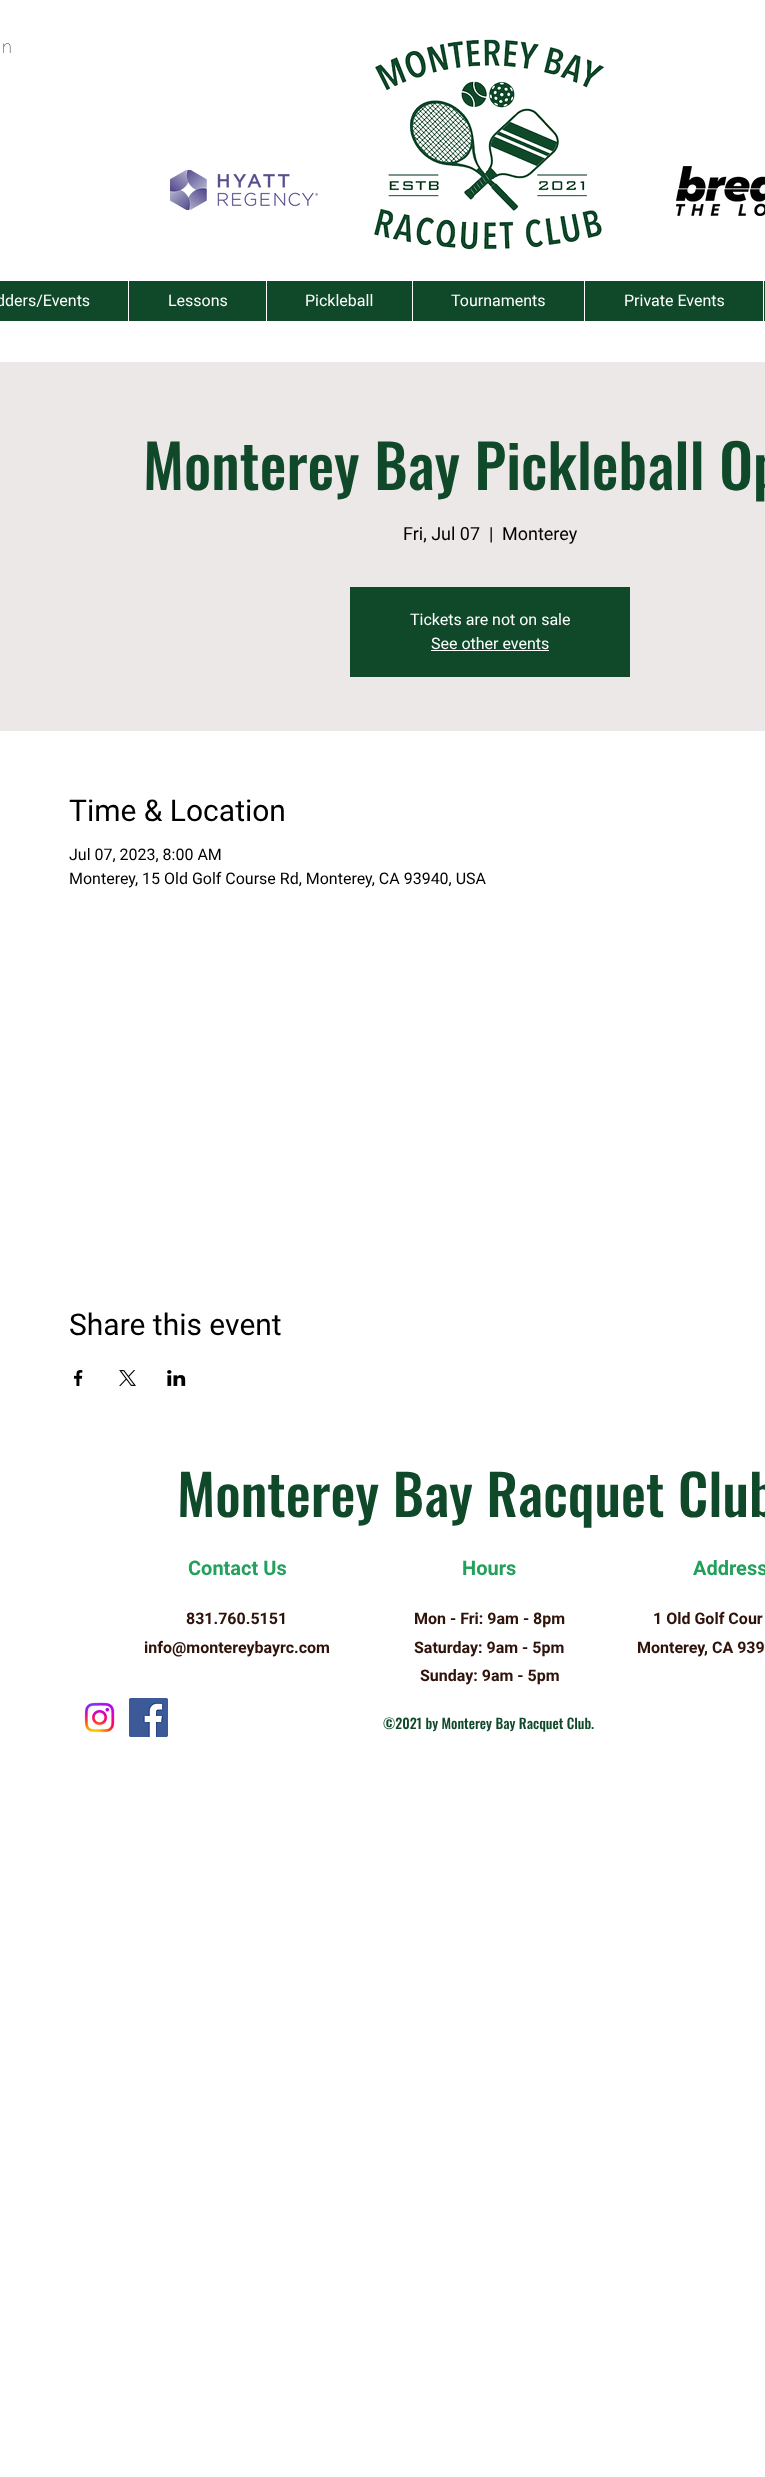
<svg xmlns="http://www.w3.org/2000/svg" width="765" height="2477">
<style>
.a{font:100 18px Roboto;fill:#2f120a}
.b{font:16px Roboto;fill:#fff}
.c{font:500 60px Oswald;fill:#10492a}
.d{font:18px Roboto;fill:#000}
.e{font:30px Roboto;fill:#000}
.f{font:16px Roboto;fill:#000}
.g{font:500 56px Oswald;fill:#10492a}
.h{font:bold 20px Roboto;fill:#23a05c}
.i{font:bold 16px Roboto;fill:#2f120a}
.j{font:500 14px Oswald;fill:#10492a}
</style>
<rect width="100%" height="100%" fill="#fff"/>
<image href="1.png" x="374" y="39" width="230" height="211"/>
<image href="2.png" x="170" y="170" width="148" height="40"/>
<image href="3.png" x="676" y="166" width="89" height="50"/>
<path fill="#10492a" d="M0 281h765v40H0z"/>
<path fill="#fff" d="M128 276h1v50H128z"/>
<path fill="#fff" d="M266 276h1v50H266z"/>
<path fill="#fff" d="M412 276h1v50H412z"/>
<path fill="#fff" d="M584 276h1v50H584z"/>
<path fill="#fff" d="M763 276h1v50H763z"/>
<path fill="#ebe8e7" d="M0 362h765v369H0z"/>
<path fill="#10492a" d="M350 587h280v90H350z"/>
<path fill="#fff" d="M431 650h118v1H431z"/>
<image href="4.png" x="74" y="1370" width="9" height="16"/>
<image href="5.png" x="119" y="1370" width="17" height="16"/>
<image href="6.png" x="167" y="1370" width="19" height="16"/>
<image href="7.png" x="84" y="1702" width="31" height="31"/>
<image href="8.png" x="129" y="1698" width="39" height="39"/>
<text class="a" x="2" y="53">n</text>
<text class="b" x="-4" y="306">dders/Events</text>
<text class="b" x="168" y="306">Lessons</text>
<text class="b" x="305" y="306">Pickleball</text>
<text class="b" x="451" y="306">Tournaments</text>
<text class="b" x="624" y="306">Private Events</text>
<text class="c" x="143" y="490">Monterey Bay Pickleball Op</text>
<text class="d" x="403" y="540">Fri, Jul 07</text>
<text class="d" x="489" y="540">|</text>
<text class="d" x="502" y="540">Monterey</text>
<text class="b" x="410" y="625">Tickets are not on sale</text>
<text class="b" x="431" y="649">See other events</text>
<text class="e" x="69" y="821">Time &amp; Location</text>
<text class="f" x="69" y="860">Jul 07, 2023, 8:00 AM</text>
<text class="f" x="69" y="884">Monterey, 15 Old Golf Course Rd, Monterey, CA 93940, USA</text>
<text class="e" x="69" y="1335">Share this event</text>
<text class="g" x="177" y="1517">Monterey Bay Racquet Club</text>
<text class="h" x="188" y="1575">Contact Us</text>
<text class="h" x="462" y="1575">Hours</text>
<text class="h" x="693" y="1575">Address</text>
<text class="i" x="186" y="1624">831.760.5151</text>
<text class="i" x="144" y="1653">info@montereybayrc.com</text>
<text class="i" x="414" y="1624">Mon - Fri: 9am - 8pm</text>
<text class="i" x="414" y="1653">Saturday: 9am - 5pm</text>
<text class="i" x="420" y="1681">Sunday: 9am - 5pm</text>
<text class="i" x="653" y="1624">1 Old Golf Cour</text>
<text class="i" x="637" y="1653">Monterey, CA 939</text>
<text class="j" x="383" y="1729">©2021 by Monterey Bay Racquet Club.</text>
</svg>
